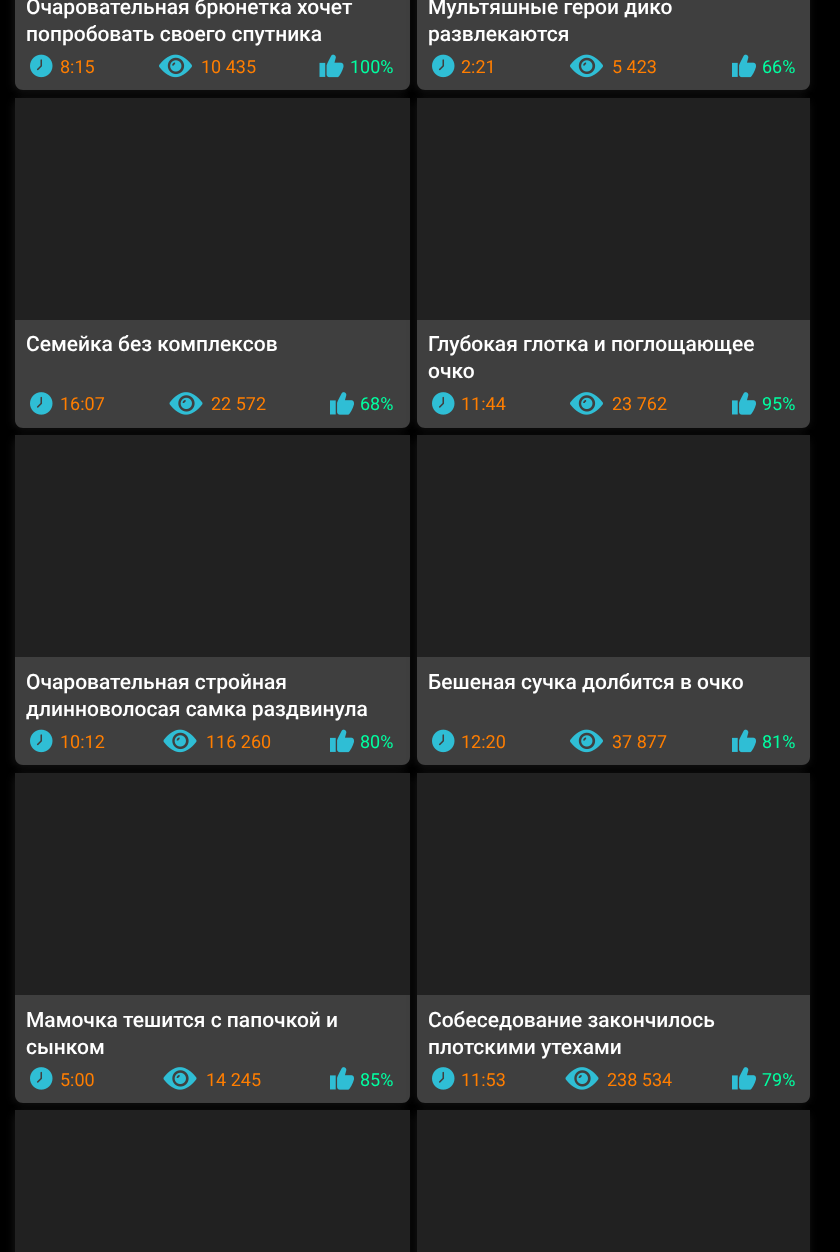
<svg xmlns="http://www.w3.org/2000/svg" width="840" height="1252">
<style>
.a{font:500 21px Roboto;fill:#fff}
.b{font:18px Roboto;fill:#ff7e00}
.c{font:18px Roboto;fill:#00ffa1}
</style>
<rect width="100%" height="100%" fill="#000"/>
<rect fill="#212121a6" filter="blur(4px)" x="14" y="-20" width="394" height="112" rx="8"/>
<path fill="#3f3f3f" d="M15-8h395v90c0 4.5-3.5 8-8 8h-379c-4.5 0-8-3.5-8-8z"/>
<image href="1.png" x="30" y="54" width="23" height="24"/>
<image href="2.png" x="159" y="54" width="33" height="24"/>
<image href="3.png" x="319" y="54" width="25" height="24"/>
<rect fill="#212121a6" filter="blur(4px)" x="416" y="-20" width="393" height="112" rx="8"/>
<path fill="#3f3f3f" d="M417-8h393v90c0 4.5-3.5 8-8 8h-377c-4.5 0-8-3.5-8-8z"/>
<image href="1.png" x="432" y="54" width="23" height="24"/>
<image href="2.png" x="570" y="54" width="33" height="24"/>
<image href="4.png" x="732" y="54" width="24" height="24"/>
<rect fill="#212121a6" filter="blur(4px)" x="14" y="99" width="394" height="330" rx="8"/>
<path fill="#3f3f3f" d="M15 98h395v322c0 4.5-3.5 8-8 8h-379c-4.5 0-8-3.5-8-8z"/>
<rect fill="#212121a6" filter="blur(4px)" x="416" y="99" width="393" height="330" rx="8"/>
<path fill="#212121" d="M15 98h395v222H15z"/>
<image href="5.png" x="30" y="392" width="23" height="23"/>
<image href="6.png" x="169" y="392" width="34" height="23"/>
<image href="7.png" x="330" y="392" width="24" height="23"/>
<path fill="#3f3f3f" d="M417 98h393v322c0 4.5-3.5 8-8 8h-377c-4.5 0-8-3.5-8-8z"/>
<path fill="#212121" d="M417 98h393v222H417z"/>
<image href="5.png" x="432" y="392" width="23" height="23"/>
<image href="8.png" x="570" y="392" width="33" height="23"/>
<image href="7.png" x="732" y="392" width="24" height="23"/>
<rect fill="#212121a6" filter="blur(4px)" x="14" y="437" width="394" height="330" rx="8"/>
<path fill="#3f3f3f" d="M15 435h395v322c0 4.5-3.5 8-8 8h-379c-4.5 0-8-3.5-8-8z"/>
<rect fill="#212121a6" filter="blur(4px)" x="416" y="437" width="393" height="330" rx="8"/>
<path fill="#212121" d="M15 435h395v222H15z"/>
<image href="1.png" x="30" y="729" width="23" height="24"/>
<image href="9.png" x="163" y="729" width="34" height="24"/>
<image href="4.png" x="330" y="729" width="24" height="24"/>
<path fill="#3f3f3f" d="M417 435h393v322c0 4.5-3.5 8-8 8h-377c-4.5 0-8-3.5-8-8z"/>
<path fill="#212121" d="M417 435h393v222H417z"/>
<image href="1.png" x="432" y="729" width="23" height="24"/>
<image href="2.png" x="570" y="729" width="33" height="24"/>
<image href="4.png" x="732" y="729" width="24" height="24"/>
<rect fill="#212121a6" filter="blur(4px)" x="14" y="774" width="394" height="330" rx="8"/>
<path fill="#3f3f3f" d="M15 773h395v322c0 4.5-3.5 8-8 8h-379c-4.5 0-8-3.5-8-8z"/>
<rect fill="#212121a6" filter="blur(4px)" x="416" y="774" width="393" height="330" rx="8"/>
<path fill="#212121" d="M15 773h395v222H15z"/>
<image href="5.png" x="30" y="1067" width="23" height="23"/>
<image href="6.png" x="163" y="1067" width="34" height="23"/>
<image href="7.png" x="330" y="1067" width="24" height="23"/>
<path fill="#3f3f3f" d="M417 773h393v322c0 4.5-3.5 8-8 8h-377c-4.5 0-8-3.5-8-8z"/>
<path fill="#212121" d="M417 773h393v222H417z"/>
<image href="5.png" x="432" y="1067" width="23" height="23"/>
<image href="6.png" x="565" y="1067" width="34" height="23"/>
<image href="7.png" x="732" y="1067" width="24" height="23"/>
<rect fill="#212121a6" filter="blur(4px)" x="14" y="1112" width="394" height="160" rx="8"/>
<rect fill="#212121a6" filter="blur(4px)" x="416" y="1112" width="393" height="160" rx="8"/>
<path fill="#212121" d="M15 1110h395v142H15z"/>
<path fill="#212121" d="M417 1110h393v142H417z"/>
<text class="a" x="26" y="14">Очаровательная брюнетка хочет</text>
<text class="a" x="26" y="41">попробовать своего спутника</text>
<text class="b" x="60" y="73">8:15</text>
<text class="b" x="201" y="73">10 435</text>
<text class="c" x="350" y="73">100%</text>
<text class="a" x="428" y="14">Мультяшные герои дико</text>
<text class="a" x="428" y="41">развлекаются</text>
<text class="b" x="461" y="73">2:21</text>
<text class="b" x="612" y="73">5 423</text>
<text class="c" x="762" y="73">66%</text>
<text class="a" x="26" y="351">Семейка без комплексов</text>
<text class="b" x="60" y="410">16:07</text>
<text class="b" x="211" y="410">22 572</text>
<text class="c" x="360" y="410">68%</text>
<text class="a" x="428" y="351">Глубокая глотка и поглощающее</text>
<text class="a" x="428" y="378">очко</text>
<text class="b" x="461" y="410">11:44</text>
<text class="b" x="612" y="410">23 762</text>
<text class="c" x="762" y="410">95%</text>
<text class="a" x="26" y="689">Очаровательная стройная</text>
<text class="a" x="26" y="716">длинноволосая самка раздвинула</text>
<text class="b" x="60" y="748">10:12</text>
<text class="b" x="206" y="748">116 260</text>
<text class="c" x="360" y="748">80%</text>
<text class="a" x="428" y="689">Бешеная сучка долбится в очко</text>
<text class="b" x="461" y="748">12:20</text>
<text class="b" x="612" y="748">37 877</text>
<text class="c" x="762" y="748">81%</text>
<text class="a" x="26" y="1027">Мамочка тешится с папочкой и</text>
<text class="a" x="26" y="1054">сынком</text>
<text class="b" x="60" y="1086">5:00</text>
<text class="b" x="206" y="1086">14 245</text>
<text class="c" x="360" y="1086">85%</text>
<text class="a" x="428" y="1027">Собеседование закончилось</text>
<text class="a" x="428" y="1054">плотскими утехами</text>
<text class="b" x="461" y="1086">11:53</text>
<text class="b" x="607" y="1086">238 534</text>
<text class="c" x="762" y="1086">79%</text>
</svg>
